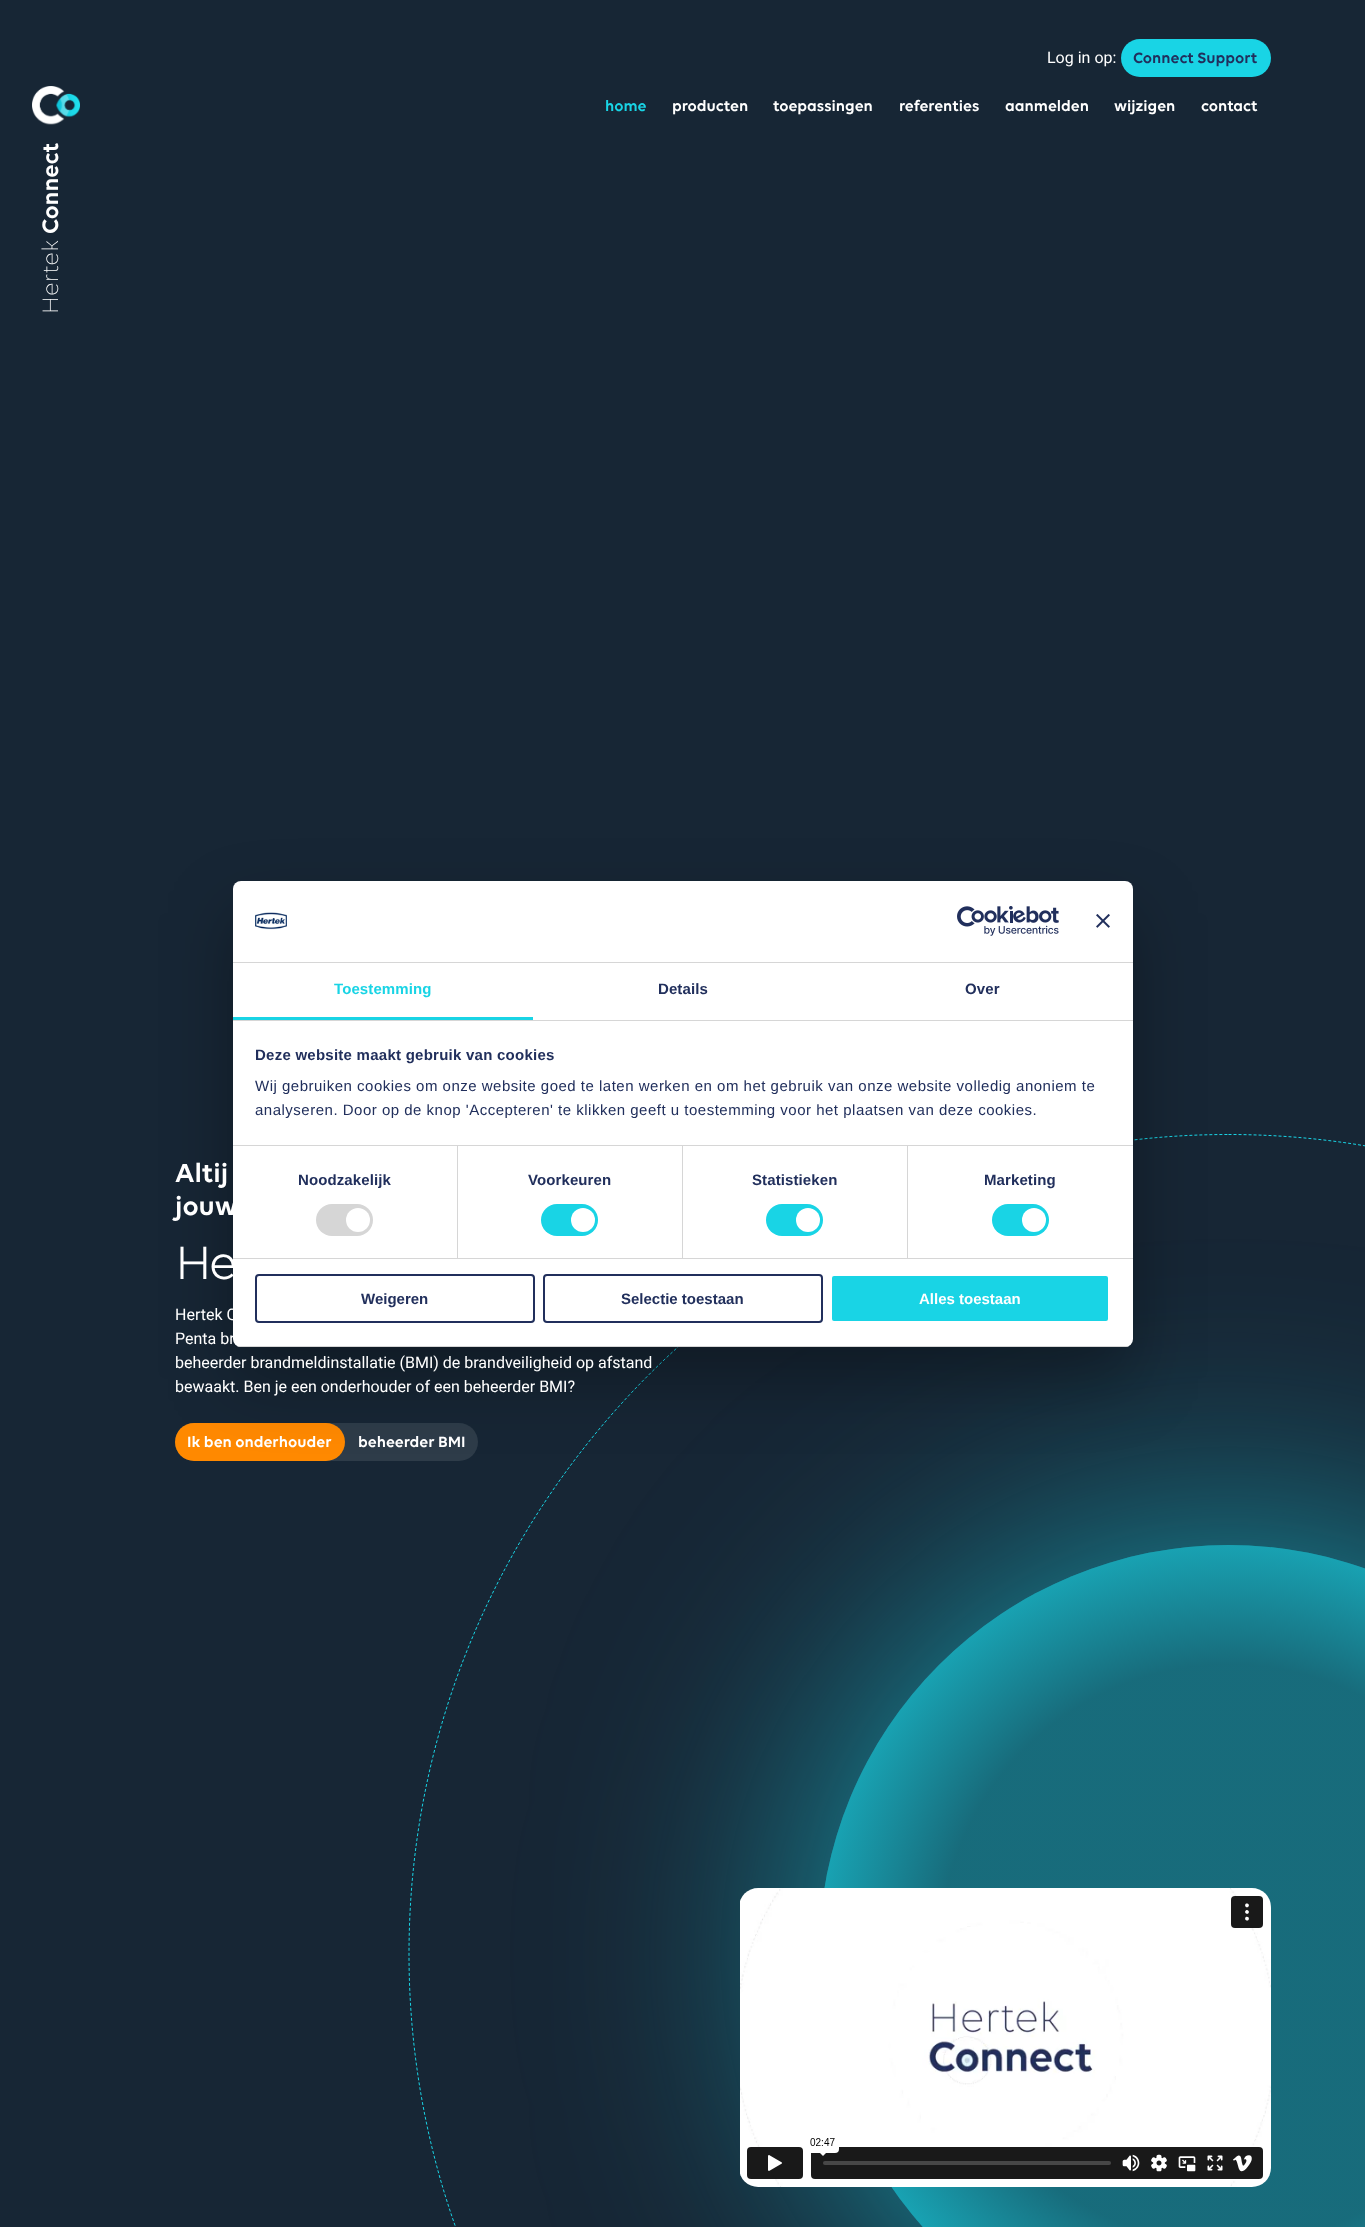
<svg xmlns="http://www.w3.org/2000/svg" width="1365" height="2227">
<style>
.a{font:16px Roboto;fill:#fff}
.b{font:600 16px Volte;fill:#212f5c}
.c{font:600 16px Volte;fill:#19d4e5}
.d{font:600 16px Volte;fill:#fff}
.e{font:600 24px Volte;fill:#fff}
.f{font:300 24px Volte;fill:#fff}
.g{font:600 28px Volte;fill:#fff}
.h{font:bold 48px Volte;letter-spacing:-2px;fill:#fff}
.i{font:bold 15px Liberation Sans;letter-spacing:0.1px;fill:#19d4e5}
.j{font:bold 15px Liberation Sans;letter-spacing:0.1px;fill:#212f5c}
.k{font:bold 15px Liberation Sans;letter-spacing:0.25px;fill:#212f5c}
.l{font:15px Liberation Sans;letter-spacing:0.5px;fill:#212f5c}
.m{font:bold 15px Liberation Sans;fill:#212f5c}
.n{font:bold 15px Liberation Sans;fill:#fff}
</style>
<defs>
<radialGradient id="g1" gradientUnits="userSpaceOnUse" cx="1229" cy="1954" r="579"><stop offset="0.5" stop-color="#172635" stop-opacity="0.6"/><stop offset="0.9" stop-color="#172635" stop-opacity="0"/></radialGradient>
<clipPath id="clip1"><rect x="233" y="881" width="900" height="466" rx="8"/></clipPath>
</defs>
<rect width="100%" height="100%" fill="#172635"/>
<rect fill="#19d4e5" x="1121" y="39" width="150" height="38" rx="19"/>
<image href="1.png" x="32" y="86" width="48" height="39"/>
<rect fill="#19d4e5b3" filter="blur(136.5px)" x="819" y="1545" width="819" height="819" rx="409.5"/>
<circle fill="#19d4e5" cx="1228.5" cy="1954.5" r="409.5"/>
<circle fill="url(#g1)" cx="1228.5" cy="1954.5" r="409.5"/>
<path fill="none" stroke="#19d4e5" stroke-dasharray="3 2" d="M1228.5 1134.5c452.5 0 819.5 367 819.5 819.5c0 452.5-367 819.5-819.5 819.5c-452.5 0-819.5-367-819.5-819.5c0-452.5 367-819.5 819.5-819.5z"/>
<rect fill="#2e3c49" x="175" y="1423" width="303" height="38" rx="19"/>
<rect fill="#ff8900" x="175" y="1423" width="170" height="38" rx="19"/>
<image href="2.png" x="740" y="1888" width="531" height="299"/>
<rect fill="#0000004d" filter="blur(34px)" x="233" y="913" width="900" height="466" rx="8"/>
<rect fill="#fff" x="233" y="881" width="900" height="466" rx="8"/>
<path fill="#d6d6d6" d="M233 962h900v1H233z"/>
<image href="3.png" x="255" y="912" width="32" height="18"/>
<image href="4.png" x="957" y="906" width="102" height="30"/>
<image href="5.png" x="1096" y="914" width="14" height="14"/>
<path fill="#d6d6d6" d="M233 1020h900v1H233z"/>
<path fill="#19d4e5" d="M233 1017h300v3H233z"/>
<path fill="#d6d6d6" d="M233 1145h900v1H233z"/>
<path fill="#d6d6d6" d="M233 1258h900v1H233z"/>
<path fill="#d6d6d6" d="M457 1146h1v112H457z"/>
<rect fill="#d6d6d6" x="316" y="1204" width="57" height="32" rx="16"/>
<circle fill="#fff" cx="358" cy="1220" r="12"/>
<path fill="#d6d6d6" d="M682 1146h1v112H682z"/>
<rect fill="#19d4e5" x="541" y="1204" width="57" height="32" rx="16"/>
<circle fill="#fff" cx="583" cy="1220" r="12"/>
<path fill="#d6d6d6" d="M907 1146h1v112H907z"/>
<rect fill="#19d4e5" x="766" y="1204" width="57" height="32" rx="16"/>
<circle fill="#fff" cx="808" cy="1220" r="12"/>
<rect fill="#19d4e5" x="992" y="1204" width="57" height="32" rx="16"/>
<circle fill="#fff" cx="1034" cy="1220" r="12"/>
<g clip-path="url(#clip1)">
<path fill="#d6d6d6" d="M233 1346h900v1H233z"/>
</g>
<rect fill="none" stroke="#212f5c" stroke-width="2" x="256" y="1275" width="278" height="47" rx="3"/>
<rect fill="none" stroke="#212f5c" stroke-width="2" x="544" y="1275" width="278" height="47" rx="3"/>
<rect fill="#19d4e5" stroke="#fff" stroke-width="2" x="831" y="1275" width="278" height="47" rx="3"/>
<text class="a" x="1047" y="63">Log in op:</text>
<text class="b" x="1133" y="63">Connect Support</text>
<text class="c" x="605" y="111">home</text>
<text class="d" x="672" y="111">producten</text>
<text class="d" x="773" y="111">toepassingen</text>
<text class="d" x="899" y="111">referenties</text>
<text class="d" x="1005" y="111">aanmelden</text>
<text class="d" x="1114" y="111">wijzigen</text>
<text class="d" x="1201" y="111">contact</text>
<text class="e" x="58" y="234" transform="rotate(-90 58 234)">Connect</text>
<text class="f" x="58" y="314" transform="rotate(-90 58 314)">Hertek</text>
<text class="g" x="175" y="1182">Altij</text>
<text class="g" x="175" y="1215">jouw</text>
<text class="h" x="175" y="1279">He</text>
<text class="a" x="175" y="1320">Hertek C</text>
<text class="a" x="175" y="1344">Penta br</text>
<text class="a" x="175" y="1368">beheerder brandmeldinstallatie (BMI) de brandveiligheid op afstand</text>
<text class="a" x="175" y="1392">bewaakt. Ben je een onderhouder of een beheerder BMI?</text>
<text class="d" x="187" y="1447">Ik ben onderhouder</text>
<text class="d" x="358" y="1447">beheerder BMI</text>
<text class="i" x="334" y="994">Toestemming</text>
<text class="j" x="658" y="994">Details</text>
<text class="j" x="965" y="994">Over</text>
<text class="k" x="255" y="1060">Deze website maakt gebruik van cookies</text>
<text class="l" x="255" y="1091">Wij gebruiken cookies om onze website goed te laten werken en om het gebruik van onze website volledig anoniem te</text>
<text class="l" x="255" y="1115">analyseren. Door op de knop 'Accepteren' te klikken geeft u toestemming voor het plaatsen van deze cookies.</text>
<text class="j" x="298" y="1185">Noodzakelijk</text>
<text class="j" x="528" y="1185">Voorkeuren</text>
<text class="j" x="752" y="1185">Statistieken</text>
<text class="j" x="984" y="1185">Marketing</text>
<text class="m" x="361" y="1304">Weigeren</text>
<text class="m" x="621" y="1304">Selectie toestaan</text>
<text class="n" x="919" y="1304">Alles toestaan</text>
</svg>
